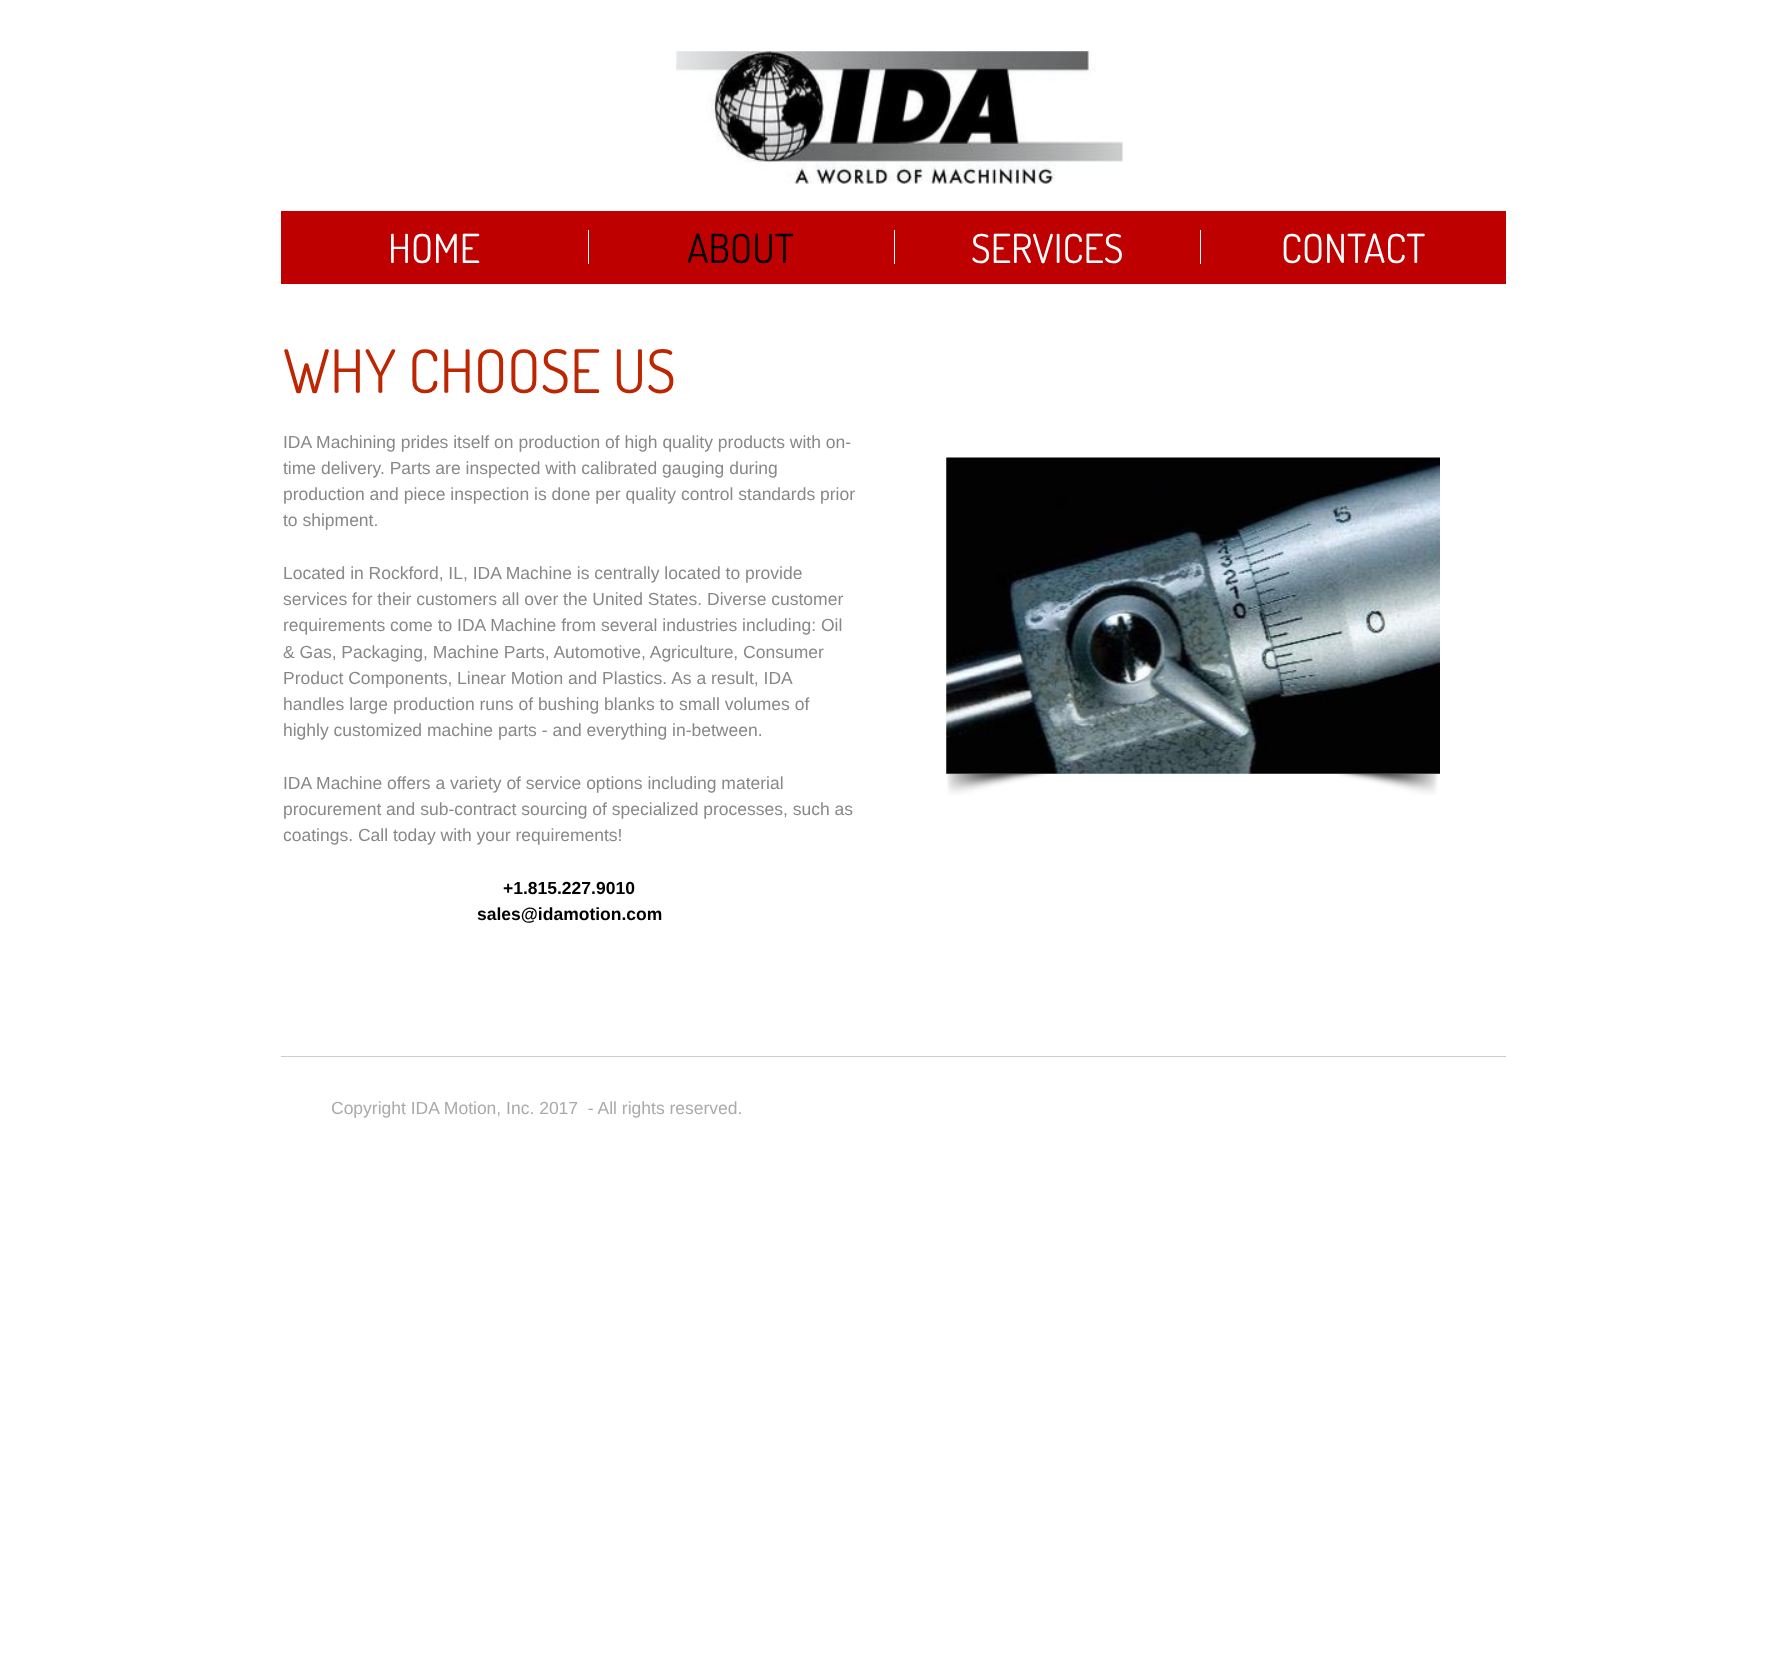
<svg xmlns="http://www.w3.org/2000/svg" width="1789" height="1661">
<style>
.a{font:40px Dosis;fill:#fff}
.b{font:40px Dosis;fill:#000}
.c{font:60px Dosis;fill:#be2602}
.d{font:17.5px Liberation Sans;fill:#888}
.e{font:bold 17.5px Liberation Sans;fill:#000}
.f{font:17.5px Liberation Sans;fill:#aaa}
</style>
<rect width="100%" height="100%" fill="#fff"/>
<image href="1.png" x="676" y="51" width="447" height="133"/>
<path fill="#bf0000" d="M281 211h1225v73H281z"/>
<path fill="#fff" d="M588 230h1v34H588z"/>
<path fill="#fff" d="M894 230h1v34H894z"/>
<path fill="#fff" d="M1200 230h1v34H1200z"/>
<image href="2.png" x="946" y="457" width="494" height="317"/>
<image href="3.png" x="947" y="773" width="491" height="22"/>
<path fill="#ccc" d="M281 1056h1225v1H281z"/>
<text class="a" x="388" y="263">HOME</text>
<text class="b" x="687" y="263">ABOUT</text>
<text class="a" x="971" y="263">SERVICES</text>
<text class="a" x="1281" y="263">CONTACT</text>
<text class="c" x="283" y="393">WHY CHOOSE US</text>
<text class="d" x="283" y="448">IDA Machining prides itself on production of high quality products with on-</text>
<text class="d" x="283" y="474">time delivery. Parts are inspected with calibrated gauging during</text>
<text class="d" x="283" y="500">production and piece inspection is done per quality control standards prior</text>
<text class="d" x="283" y="526">to shipment.</text>
<text class="d" x="283" y="579">Located in Rockford, IL, IDA Machine is centrally located to provide</text>
<text class="d" x="283" y="605">services for their customers all over the United States. Diverse customer</text>
<text class="d" x="283" y="631">requirements come to IDA Machine from several industries including: Oil</text>
<text class="d" x="283" y="658">&amp; Gas, Packaging, Machine Parts, Automotive, Agriculture, Consumer</text>
<text class="d" x="283" y="684">Product Components, Linear Motion and Plastics. As a result, IDA</text>
<text class="d" x="283" y="710">handles large production runs of bushing blanks to small volumes of</text>
<text class="d" x="283" y="736">highly customized machine parts - and everything in-between.</text>
<text class="d" x="283" y="789">IDA Machine offers a variety of service options including material</text>
<text class="d" x="283" y="815">procurement and sub-contract sourcing of specialized processes, such as</text>
<text class="d" x="283" y="841">coatings. Call today with your requirements!</text>
<text class="e" x="503" y="894">+1.815.227.9010</text>
<text class="e" x="477" y="920">sales@idamotion.com</text>
<text class="f" xml:space="preserve" x="331" y="1114">Copyright IDA Motion, Inc. 2017  - All rights reserved.</text>
</svg>
